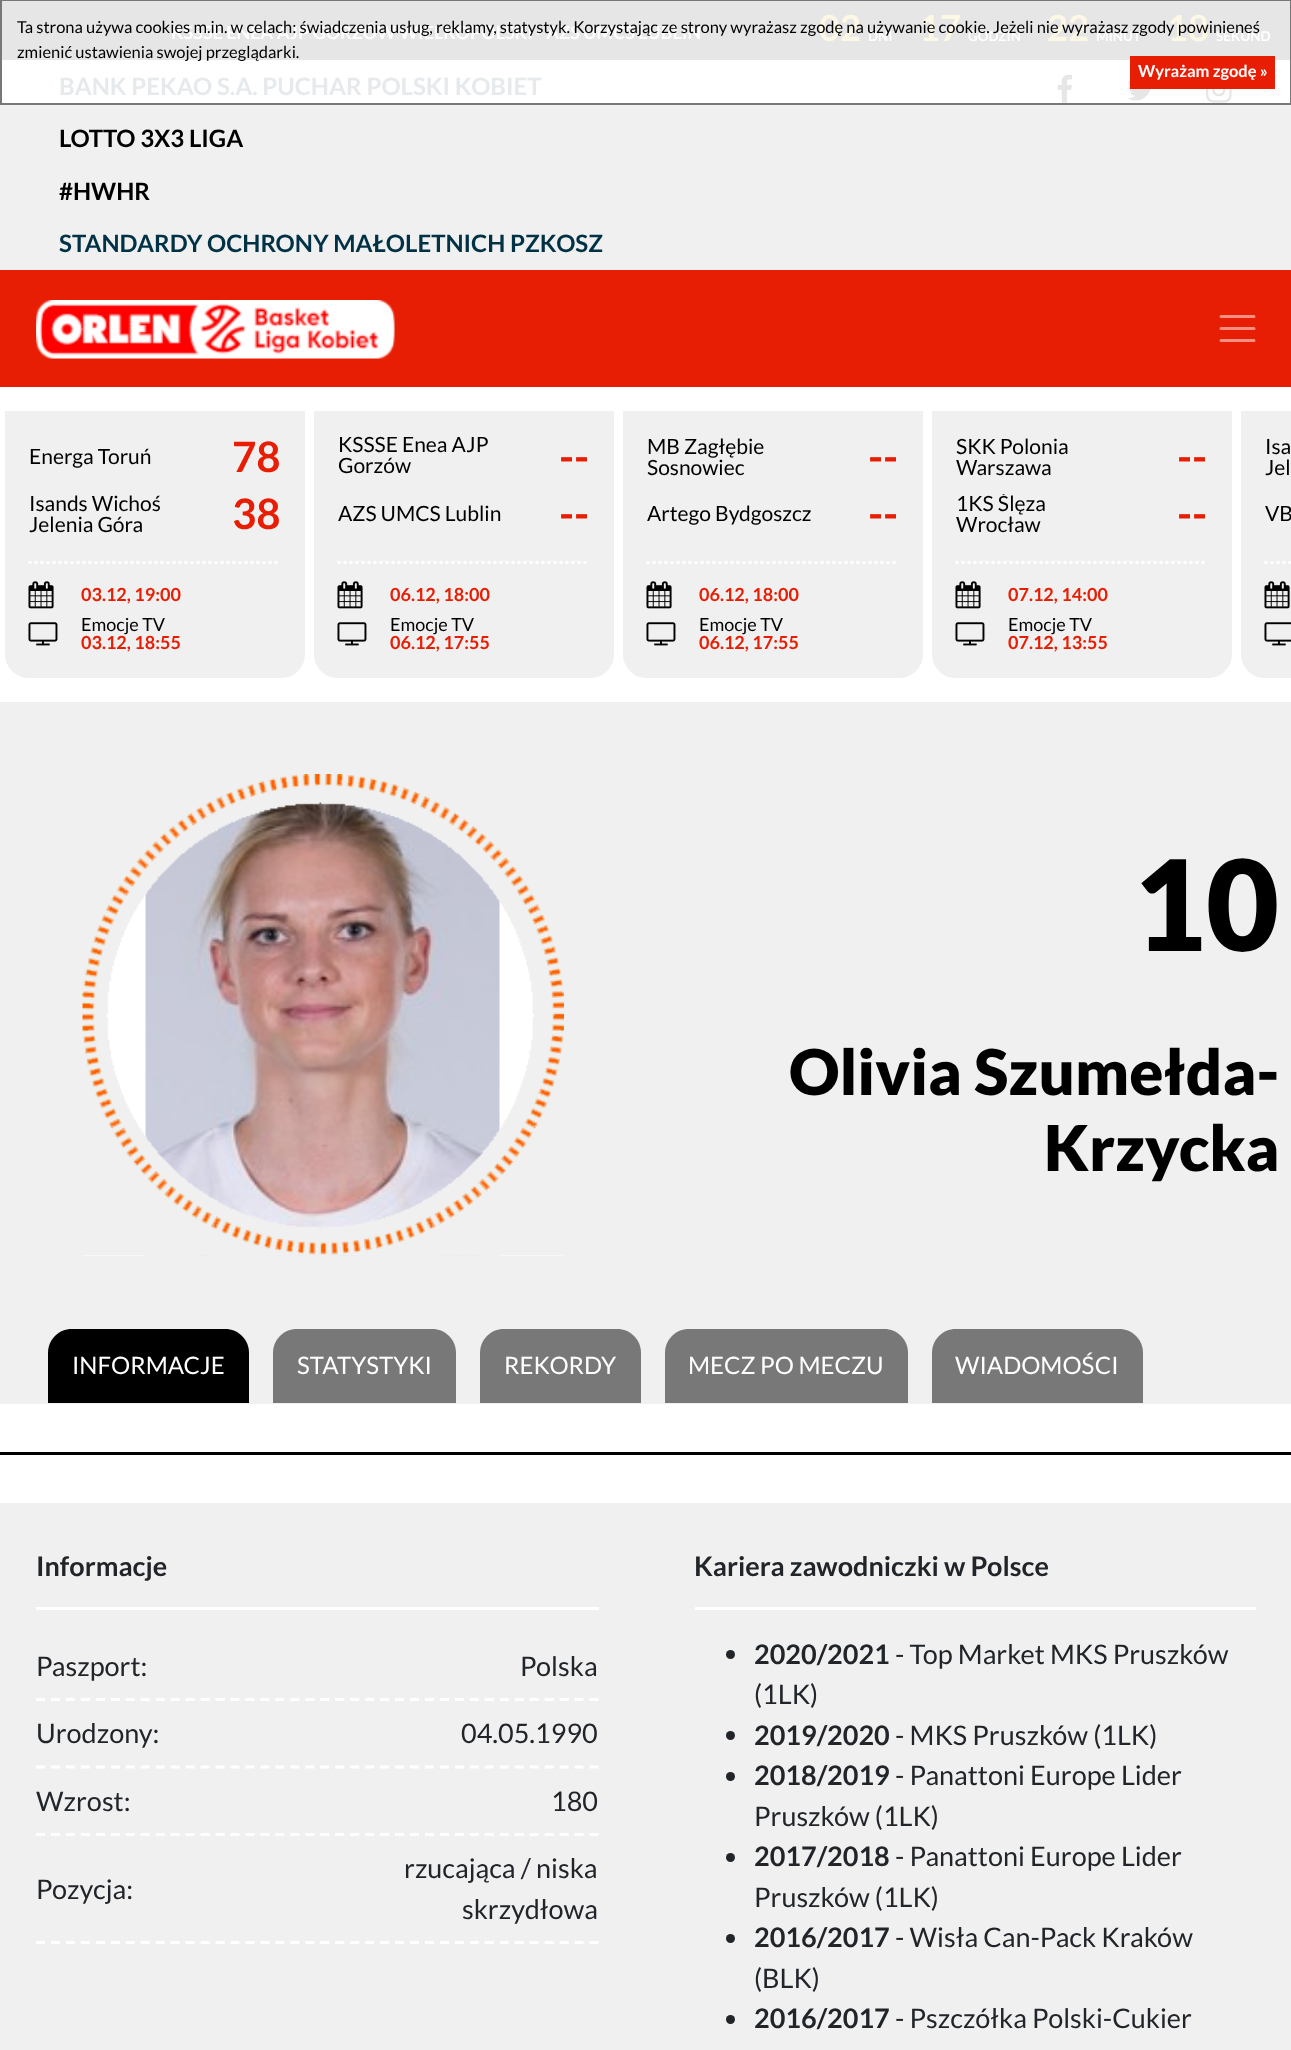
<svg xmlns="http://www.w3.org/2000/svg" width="1291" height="2050">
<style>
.a{font:bold 18px Lato;fill:#fff}
.b{font:bold 36px Lato;fill:#fdf7e6}
.c{font:bold 13.5px Lato;fill:#fff}
.d{font:bold 24px Lato;fill:#e6eaec}
.e{font:bold 24px Lato;fill:#000}
.f{font:bold 24px Lato;fill:#013145}
.g{font:21px Lato;fill:#000}
.h{font:bold 42px Lato;fill:#e81e04}
.i{font:bold 18px Lato;fill:#e81e04}
.j{font:18px Lato;fill:#000}
.k{font:900 126px Lato;fill:#000}
.l{font:900 63px Lato;fill:#000}
.m{font:24px Lato;fill:#fff}
.n{font:bold 27px Lato;fill:#212529}
.o{font:27px Lato;fill:#212529}
.p{font:16.5px Lato;fill:#000}
.q{font:bold 16.5px Lato;fill:#fff}
</style>
<defs>
<clipPath id="clip1"><path d="M956 494h172v42H956z"/></clipPath>
</defs>
<rect width="100%" height="100%" fill="#fff"/>
<path fill="#e6e6e6" d="M2 1h1288v59H2z"/>
<path fill="#f0f0f0" d="M0 105h1291v165H0z"/>
<image href="1.png" x="1057" y="74" width="16" height="29"/>
<image href="2.png" x="1127" y="80" width="24" height="21"/>
<image href="3.png" x="1206" y="89" width="26" height="14"/>
<path fill="#e81e04" d="M0 270h1291v117H0z"/>
<image href="4.png" x="36" y="300" width="359" height="59"/>
<path fill="none" stroke="#f48f82" stroke-width="3" stroke-linecap="round" d="M1221 316.5h33m-33 12h33m-33 12h33"/>
<path fill="#f0f0f0" d="M5 411h300v243c0 13.5-10.5 24-24 24h-252c-13.5 0-24-10.5-24-24z"/>
<path fill="none" stroke="#fff" stroke-width="3" stroke-dasharray="3 3" d="M28.5 562.5h252"/>
<image href="5.png" x="28" y="581" width="26" height="28"/>
<image href="6.png" x="28" y="622" width="30" height="24"/>
<path fill="#f0f0f0" d="M314 411h300v243c0 13.5-10.5 24-24 24h-252c-13.5 0-24-10.5-24-24z"/>
<path fill="none" stroke="#fff" stroke-width="3" stroke-dasharray="3 3" d="M337.5 562.5h252"/>
<image href="5.png" x="337" y="581" width="26" height="28"/>
<image href="6.png" x="337" y="622" width="30" height="24"/>
<path fill="#f0f0f0" d="M623 411h300v243c0 13.5-10.5 24-24 24h-252c-13.5 0-24-10.5-24-24z"/>
<path fill="none" stroke="#fff" stroke-width="3" stroke-dasharray="3 3" d="M646.5 562.5h252"/>
<image href="5.png" x="646" y="581" width="26" height="28"/>
<image href="6.png" x="646" y="622" width="30" height="24"/>
<path fill="#f0f0f0" d="M932 411h300v243c0 13.5-10.5 24-24 24h-252c-13.5 0-24-10.5-24-24z"/>
<path fill="none" stroke="#fff" stroke-width="3" stroke-dasharray="3 3" d="M955.5 562.5h252"/>
<image href="5.png" x="955" y="581" width="26" height="28"/>
<image href="6.png" x="955" y="622" width="30" height="24"/>
<path fill="#f0f0f0" d="M1241 411h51v267h-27c-13.5 0-24-10.5-24-24z"/>
<path fill="none" stroke="#fff" stroke-width="3" stroke-dasharray="3 3" d="M1264.5 562.5h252"/>
<image href="5.png" x="1264" y="581" width="26" height="28"/>
<image href="7.png" x="1264" y="622" width="27" height="24"/>
<path fill="#f0f0f0" d="M0 702h1291v702H0z"/>
<path fill="#fff" d="M83 893h481v363H83z"/>
<image href="8.png" x="145" y="802" width="355" height="454"/>
<image href="9.png" x="82" y="774" width="482" height="482"/>
<path fill="#000" d="M72 1329h153c13.5 0 24 10.5 24 24v50h-201v-50c0-13.5 10.5-24 24-24z"/>
<path fill="#787878" d="M297 1329h135c13.5 0 24 10.5 24 24v50h-183v-50c0-13.5 10.5-24 24-24z"/>
<path fill="#787878" d="M504 1329h113c13.5 0 24 10.5 24 24v50h-161v-50c0-13.5 10.5-24 24-24z"/>
<path fill="#787878" d="M689 1329h195c13.5 0 24 10.5 24 24v50h-243v-50c0-13.5 10.5-24 24-24z"/>
<path fill="#787878" d="M956 1329h163c13.5 0 24 10.5 24 24v50h-211v-50c0-13.5 10.5-24 24-24z"/>
<path fill="#000" d="M0 1452h1291v3H0z"/>
<path fill="#f0f0f0" d="M0 1503h1291v547H0z"/>
<path fill="#fff" d="M36 1607h563v3H36z"/>
<path fill="none" stroke="#fff" stroke-width="3" stroke-dasharray="9 5.96" d="M36 1699.5h562.5"/>
<path fill="none" stroke="#fff" stroke-width="3" stroke-dasharray="9 5.96" d="M36 1767h562.5"/>
<path fill="none" stroke="#fff" stroke-width="3" stroke-dasharray="9 5.96" d="M36 1834.5h562.5"/>
<path fill="none" stroke="#fff" stroke-width="3" stroke-dasharray="9 5.96" d="M36 1942.5h562.5"/>
<path fill="#fff" d="M695 1607h561v3H695z"/>
<circle fill="#212529" cx="730.5" cy="1654.5" r="4.5"/>
<circle fill="#212529" cx="730.5" cy="1735.5" r="4.5"/>
<circle fill="#212529" cx="730.5" cy="1776.5" r="4.5"/>
<circle fill="#212529" cx="730.5" cy="1857.5" r="4.5"/>
<circle fill="#212529" cx="730.5" cy="1938.5" r="4.5"/>
<circle fill="#212529" cx="730.5" cy="2019.5" r="4.5"/>
<path fill="none" stroke="#777" stroke-width="2" d="M1 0h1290v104H1z"/>
<path fill="#e81e04" d="M1130 56h145v33H1130z"/>
<text class="a" x="171" y="39">KSSSE ENEA AJP GORZÓW WIELKOPOLSKI - AZS UMCS LUBLIN</text>
<text class="b" x="819" y="41">02</text>
<text class="c" x="868" y="41">DNI</text>
<text class="b" x="919" y="41">17</text>
<text class="c" x="968" y="41">GODZIN</text>
<text class="b" x="1047" y="41">22</text>
<text class="c" x="1096" y="41">MINUT</text>
<text class="b" x="1167" y="41">18</text>
<text class="c" x="1216" y="41">SEKUND</text>
<text class="d" x="59" y="95">BANK PEKAO S.A. PUCHAR POLSKI KOBIET</text>
<text class="e" x="59" y="147">LOTTO 3X3 LIGA</text>
<text class="e" x="59" y="200">#HWHR</text>
<text class="f" x="59" y="252">STANDARDY OCHRONY MAŁOLETNICH PZKOSZ</text>
<text class="g" x="29" y="464">Energa Toruń</text>
<text class="h" x="232" y="472">78</text>
<text class="g" x="29" y="511">Isands Wichoś</text>
<text class="g" x="29" y="532">Jelenia Góra</text>
<text class="h" x="232" y="529">38</text>
<text class="i" x="81" y="601">03.12, 19:00</text>
<text class="j" x="81" y="631">Emocje TV</text>
<text class="i" x="81" y="649">03.12, 18:55</text>
<text class="g" x="338" y="452">KSSSE Enea AJP</text>
<text class="g" x="338" y="473">Gorzów</text>
<text class="h" x="559" y="472">--</text>
<text class="g" x="338" y="521">AZS UMCS Lublin</text>
<text class="h" x="559" y="529">--</text>
<text class="i" x="390" y="601">06.12, 18:00</text>
<text class="j" x="390" y="631">Emocje TV</text>
<text class="i" x="390" y="649">06.12, 17:55</text>
<text class="g" x="647" y="454">MB Zagłębie</text>
<text class="g" x="647" y="475">Sosnowiec</text>
<text class="h" x="868" y="472">--</text>
<text class="g" x="647" y="521">Artego Bydgoszcz</text>
<text class="h" x="868" y="529">--</text>
<text class="i" x="699" y="601">06.12, 18:00</text>
<text class="j" x="699" y="631">Emocje TV</text>
<text class="i" x="699" y="649">06.12, 17:55</text>
<text class="g" x="956" y="454">SKK Polonia</text>
<text class="g" x="956" y="475">Warszawa</text>
<text class="h" x="1177" y="472">--</text>
<g clip-path="url(#clip1)">
<text class="g" x="956" y="511">1KS Ślęza</text>
</g>
<text class="g" x="956" y="532">Wrocław</text>
<text class="h" x="1177" y="529">--</text>
<text class="i" x="1008" y="601">07.12, 14:00</text>
<text class="j" x="1008" y="631">Emocje TV</text>
<text class="i" x="1008" y="649">07.12, 13:55</text>
<text class="g" x="1265" y="454">Isa</text>
<text class="g" x="1265" y="475">Jel</text>
<text class="g" x="1265" y="521">VB</text>
<text class="k" x="1133" y="951">10</text>
<text class="l" x="789" y="1095">Olivia Szumełda-</text>
<text class="l" x="1044" y="1171">Krzycka</text>
<text class="m" x="72" y="1374">INFORMACJE</text>
<text class="m" x="297" y="1374">STATYSTYKI</text>
<text class="m" x="504" y="1374">REKORDY</text>
<text class="m" x="688" y="1374">MECZ PO MECZU</text>
<text class="m" x="955" y="1374">WIADOMOŚCI</text>
<text class="n" x="36" y="1576">Informacje</text>
<text class="o" x="36" y="1676">Paszport:</text>
<text class="o" x="520" y="1676">Polska</text>
<text class="o" x="36" y="1743">Urodzony:</text>
<text class="o" x="461" y="1743">04.05.1990</text>
<text class="o" x="36" y="1811">Wzrost:</text>
<text class="o" x="551" y="1811">180</text>
<text class="o" x="36" y="1899">Pozycja:</text>
<text class="o" x="404" y="1878">rzucająca / niska</text>
<text class="o" x="462" y="1919">skrzydłowa</text>
<text class="n" x="694" y="1576">Kariera zawodniczki w Polsce</text>
<text class="n" x="754" y="1664">2020/2021</text>
<text class="o" x="895" y="1664">- Top Market MKS Pruszków</text>
<text class="o" x="754" y="1704">(1LK)</text>
<text class="n" x="754" y="1745">2019/2020</text>
<text class="o" x="895" y="1745">- MKS Pruszków (1LK)</text>
<text class="n" x="754" y="1785">2018/2019</text>
<text class="o" x="895" y="1785">- Panattoni Europe Lider</text>
<text class="o" x="754" y="1826">Pruszków (1LK)</text>
<text class="n" x="754" y="1866">2017/2018</text>
<text class="o" x="895" y="1866">- Panattoni Europe Lider</text>
<text class="o" x="754" y="1907">Pruszków (1LK)</text>
<text class="n" x="754" y="1947">2016/2017</text>
<text class="o" x="895" y="1947">- Wisła Can-Pack Kraków</text>
<text class="o" x="754" y="1988">(BLK)</text>
<text class="n" x="754" y="2028">2016/2017</text>
<text class="o" x="895" y="2028">- Pszczółka Polski-Cukier</text>
<text class="p" x="17" y="33">Ta strona używa cookies m.in. w celach: świadczenia usług, reklamy, statystyk. Korzystając ze strony wyrażasz zgodę na używanie cookie. Jeżeli nie wyrażasz zgody powinieneś</text>
<text class="p" x="17" y="58">zmienić ustawienia swojej przeglądarki.</text>
<text class="q" x="1138" y="77">Wyrażam zgodę »</text>
</svg>
